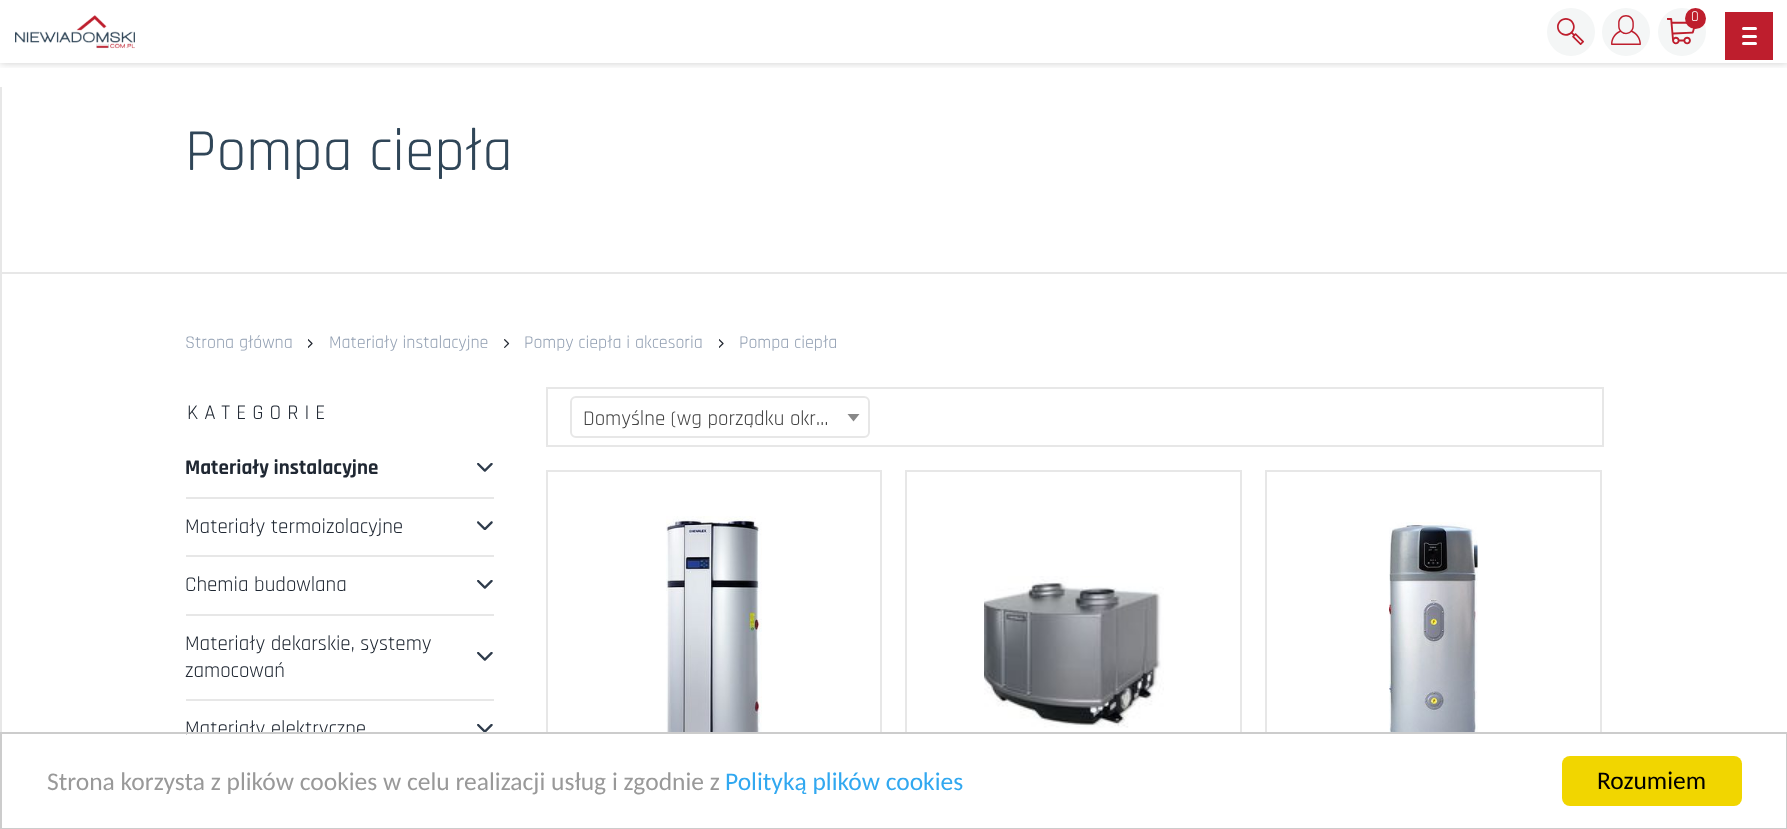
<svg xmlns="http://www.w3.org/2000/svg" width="1787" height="829">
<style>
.a{font:15px Rajdhani;fill:#fff}
.b{font:60px Rajdhani;fill:#304658}
.c{font:18px Rajdhani;fill:#93a0b3}
.d{font:21px Rajdhani;letter-spacing:6px;fill:#202833}
.e{font:bold 21px Rajdhani;fill:#202833}
.f{font:21px Rajdhani;fill:#202833}
.g{font:21px Rajdhani;fill:#444}
.h{font:25.5px Carlito;fill:#999}
.i{font:25.5px Carlito;fill:#31a8f0}
.j{font:25.5px Carlito;fill:#000}
</style>
<defs>
<clipPath id="clip1"><path d="M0 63h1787v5H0z"/></clipPath>
</defs>
<rect width="100%" height="100%" fill="#fff"/>
<path fill="#e7e7e7" d="M0 87h2v645H0z"/>
<g clip-path="url(#clip1)">
<path fill="#00000033" filter="blur(4px)" d="M0 0h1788v63H0z"/>
</g>
<image href="1.png" x="15" y="15" width="120" height="34"/>
<circle fill="#f4f6f6" cx="1571" cy="32" r="24"/>
<image href="2.png" x="1557" y="18" width="27" height="27"/>
<circle fill="#f4f6f6" cx="1626" cy="32" r="24"/>
<image href="3.png" x="1611" y="15" width="30" height="30"/>
<circle fill="#f4f6f6" cx="1682" cy="32" r="24"/>
<image href="4.png" x="1667" y="18" width="28" height="27"/>
<circle fill="#be1e2d" cx="1695.5" cy="18.5" r="10.5"/>
<path fill="#be1e2d" d="M1725 12h48v48H1725z"/>
<rect fill="#fff" x="1742" y="27" width="15" height="3" rx="1.5"/>
<rect fill="#fff" x="1742" y="35" width="15" height="3" rx="1.5"/>
<rect fill="#fff" x="1742" y="42" width="15" height="3" rx="1.5"/>
<path fill="#e7e7e7" d="M2 272h1785v2H2z"/>
<image href="5.png" x="308" y="339" width="5" height="9"/>
<image href="6.png" x="504" y="339" width="6" height="9"/>
<image href="5.png" x="719" y="339" width="5" height="9"/>
<path fill="#e7e7e7" d="M186 497h308v2H186z"/>
<image href="7.png" x="477" y="463" width="16" height="9"/>
<path fill="#e7e7e7" d="M186 555h308v2H186z"/>
<image href="8.png" x="477" y="521" width="16" height="9"/>
<path fill="#e7e7e7" d="M186 614h308v2H186z"/>
<image href="7.png" x="477" y="580" width="16" height="9"/>
<path fill="#e7e7e7" d="M186 699h308v2H186z"/>
<image href="7.png" x="477" y="652" width="16" height="9"/>
<image href="9.png" x="477" y="724" width="16" height="8"/>
<path fill="none" stroke="#e7e7e7" stroke-width="2" d="M547 388h1056v58H547z"/>
<rect fill="none" stroke="#e7e7e7" stroke-width="2" x="571" y="397" width="298" height="40" rx="5"/>
<path fill="#888" d="M847.5 414h12l-6 7.5z"/>
<path fill="none" stroke="#e7e7e7" stroke-width="2" d="M547 471h334v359H547z"/>
<image href="10.png" x="666" y="516" width="96" height="216"/>
<path fill="none" stroke="#e7e7e7" stroke-width="2" d="M906 471h335v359H906z"/>
<image href="11.png" x="984" y="576" width="180" height="152"/>
<path fill="none" stroke="#e7e7e7" stroke-width="2" d="M1266 471h335v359H1266z"/>
<image href="12.png" x="1389" y="522" width="89" height="210"/>
<text class="a" x="1691" y="21">0</text>
<text class="b" x="185" y="170">Pompa ciepła</text>
<text class="c" x="185" y="348">Strona główna</text>
<text class="c" x="329" y="348">Materiały instalacyjne</text>
<text class="c" x="524" y="348">Pompy ciepła i akcesoria</text>
<text class="c" x="739" y="348">Pompa ciepła</text>
<text class="d" x="187" y="419">KATEGORIE</text>
<text class="e" x="185" y="474">Materiały instalacyjne</text>
<text class="f" x="185" y="533">Materiały termoizolacyjne</text>
<text class="f" x="185" y="591">Chemia budowlana</text>
<text class="f" x="185" y="650">Materiały dekarskie, systemy</text>
<text class="f" x="185" y="677">zamocowań</text>
<text class="f" x="185" y="735">Materiały elektryczne</text>
<text class="g" x="583" y="425">Domyślne (wg porządku okr…</text>
<path fill="#fff" d="M187 734h1415v94H187z"/>
<path fill="none" stroke="#ccc" stroke-width="2" d="M1 733h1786v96H1z"/>
<text class="h" x="47" y="790">Strona korzysta z plików cookies w celu realizacji usług i zgodnie z</text>
<text class="i" x="725" y="790">Polityką plików cookies</text>
<rect fill="#f1d600" x="1562" y="756" width="180" height="50" rx="8"/>
<text class="j" x="1597" y="789">Rozumiem</text>
</svg>
